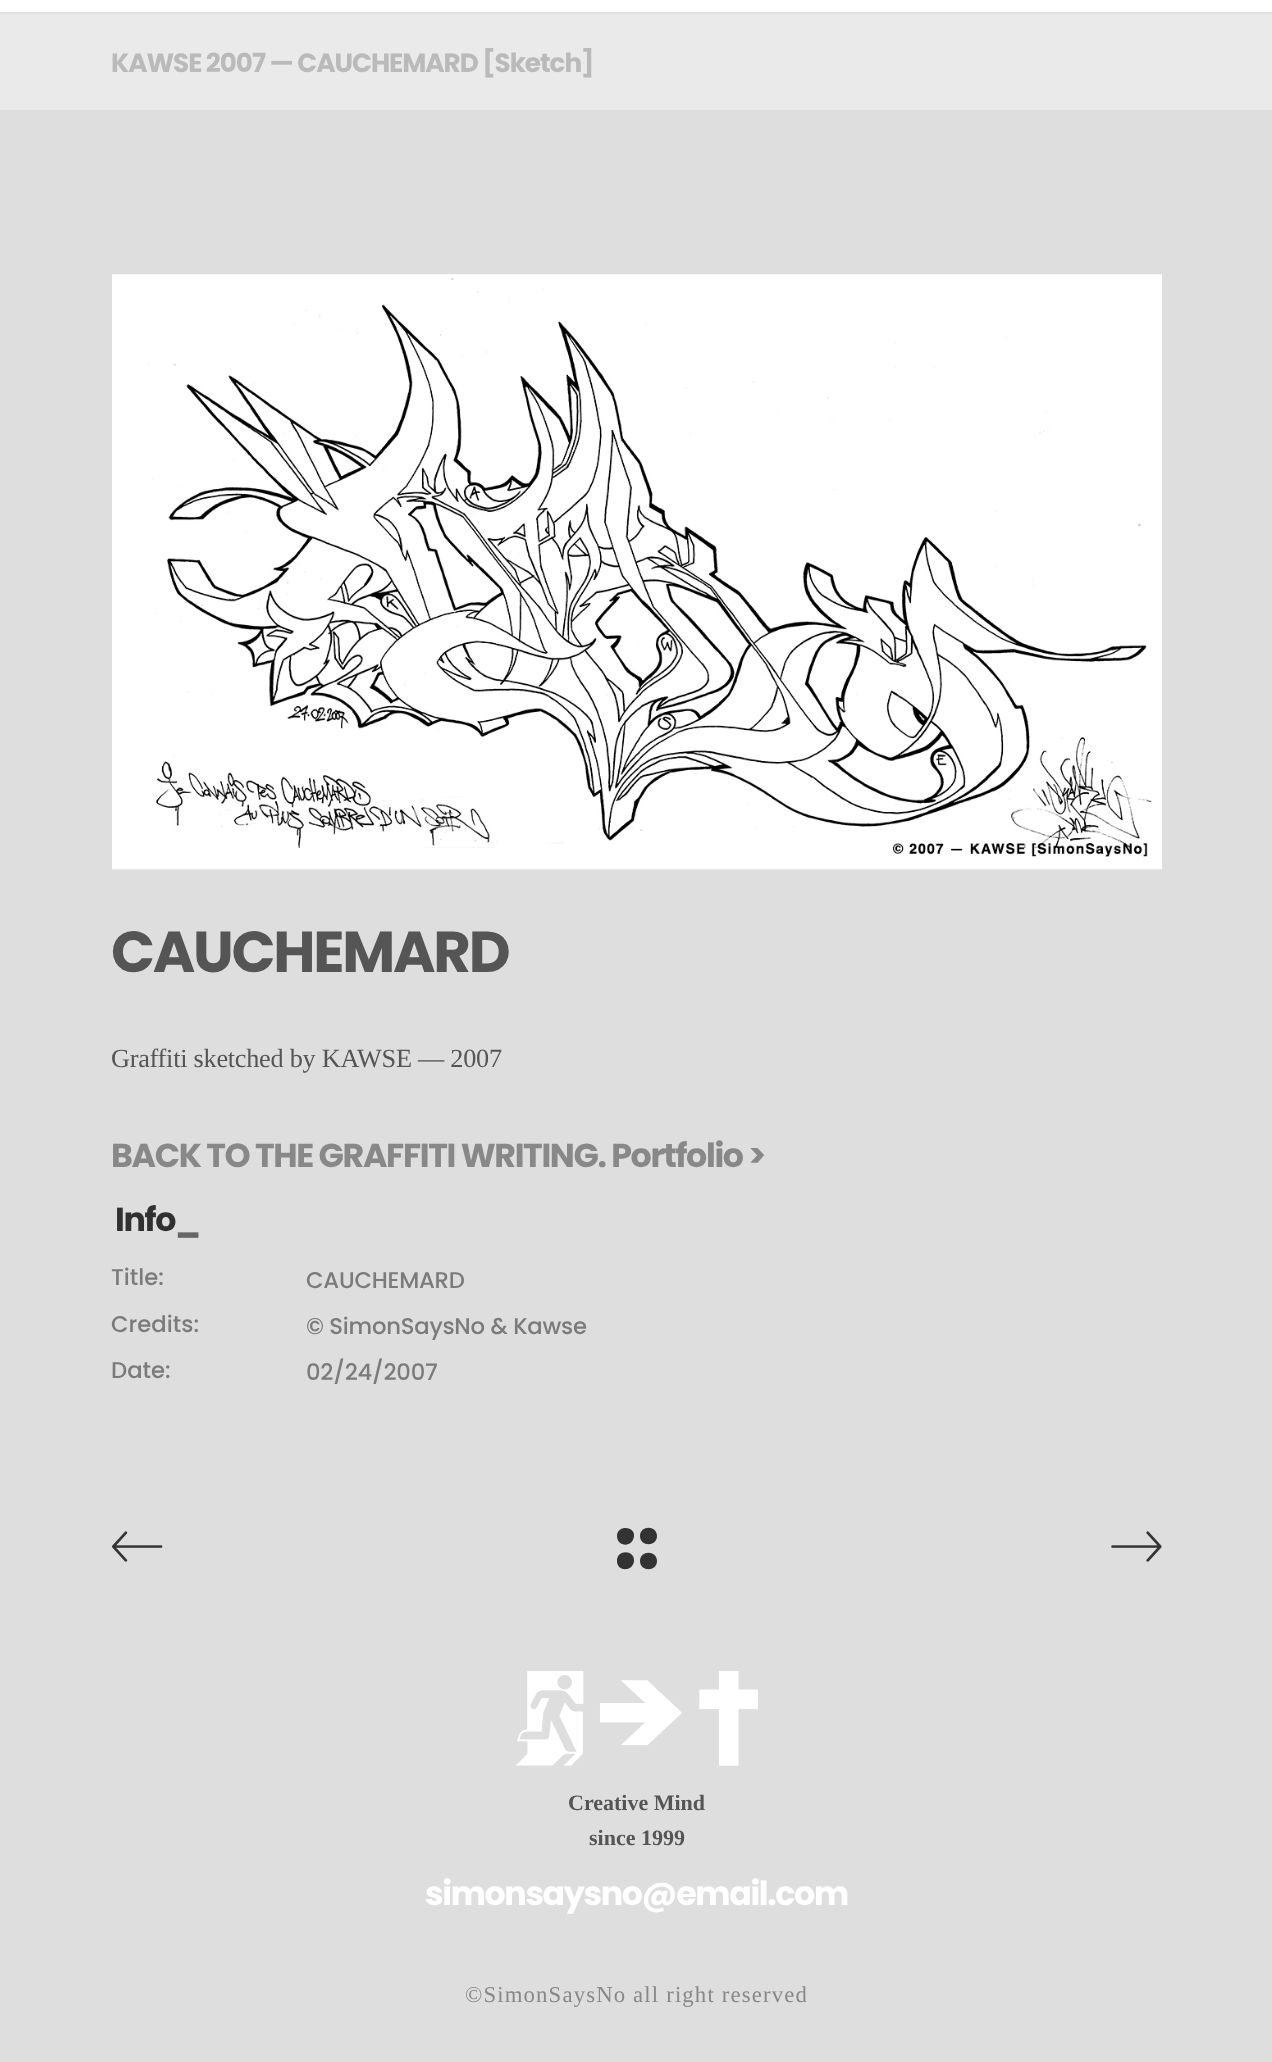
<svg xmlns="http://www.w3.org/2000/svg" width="1272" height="2062">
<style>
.a{font:bold 26.25px Poppins;letter-spacing:-1.05px;fill:#bababa}
.b{font:bold 57.75px Poppins;letter-spacing:-2.25px;fill:#555}
.c{font:26.25px Liberation Serif;letter-spacing:-0.25px;fill:#555}
.d{font:bold 33.25px Poppins;letter-spacing:-1.35px;fill:#888}
.e{font:bold 33.25px Poppins;letter-spacing:-1.35px;fill:#303030}
.f{font:bold 33.25px Poppins;letter-spacing:-1.35px;fill:#666}
.g{font:500 22.75px Poppins;fill:#7b7b7b}
.h{font:500 22.75px Poppins;letter-spacing:-0.25px;fill:#7b7b7b}
.i{font:bold 22px Liberation Serif;fill:#555}
.j{font:bold 33.25px Poppins;letter-spacing:-1.35px;fill:#fff}
.k{font:22.75px Liberation Serif;letter-spacing:1.15px;fill:#888}
</style>
<rect width="100%" height="100%" fill="#dedede"/>
<path fill="#fff" d="M0 0h1272v12H0z"/>
<path fill="#e1e1e1" d="M0 12h1272v2H0z"/>
<path fill="#eaeaea" d="M0 14h1272v96H0z"/>
<image href="1.png" x="112" y="274" width="1050" height="596"/>
<image href="2.png" x="112" y="1531" width="51" height="31"/>
<path fill="#333" d="M617 1536c0-11 18-10 17 0c-1 12-17 11-17 0zm23 0c0-11 17-11 17 0c0 11-17 11-17 0zm-23 25c0-12 18-11 17 0c-1 11-17 11-17 0zm23 0c0-11 17-11 17 0c0 11-17 11-17 0z"/>
<image href="3.png" x="1111" y="1531" width="51" height="31"/>
<image href="4.png" x="516" y="1671" width="242" height="95"/>
<text class="a" x="111" y="72">KAWSE 2007 — CAUCHEMARD [Sketch]</text>
<text class="b" x="111" y="972">CAUCHEMARD</text>
<text class="c" x="111" y="1067">Graffiti sketched by KAWSE — 2007</text>
<text class="d" x="111" y="1167">BACK TO THE GRAFFITI WRITING. Portfolio &gt;</text>
<text class="e" x="115" y="1231">Info</text>
<text class="f" x="175" y="1231">_</text>
<text class="g" x="111" y="1285">Title:</text>
<text class="h" x="306" y="1288">CAUCHEMARD</text>
<text class="g" x="111" y="1332">Credits:</text>
<text class="h" x="306" y="1334">© SimonSaysNo &amp; Kawse</text>
<text class="g" x="111" y="1378">Date:</text>
<text class="h" x="306" y="1380">02/24/2007</text>
<text class="i" x="568" y="1810">Creative Mind</text>
<text class="i" x="589" y="1845">since 1999</text>
<text class="j" x="425" y="1905">simonsaysno@email.com</text>
<text class="k" x="465" y="2002">©SimonSaysNo all right reserved</text>
</svg>
